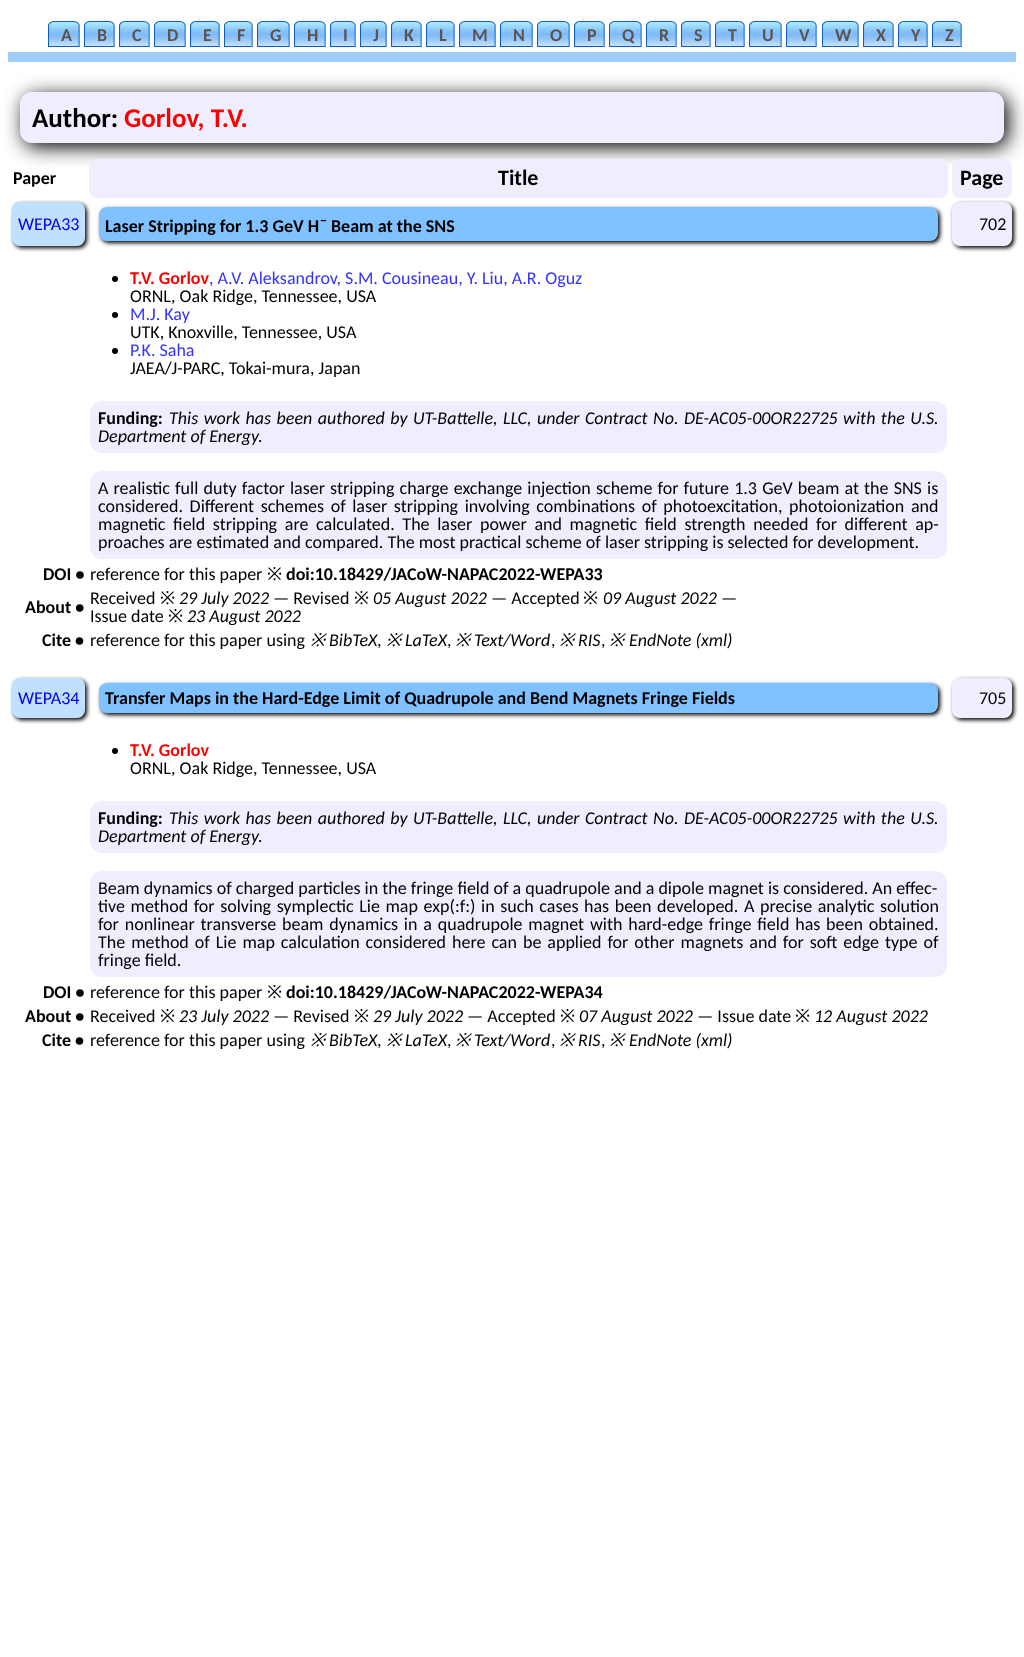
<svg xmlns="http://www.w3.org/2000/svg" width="1024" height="1657">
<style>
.a{font:bold 18px Carlito;fill:#5d5350}
.b{font:bold 27px Carlito;fill:#000}
.c{font:bold 27px Carlito;fill:#f00}
.d{font:bold 18px Carlito;fill:#000}
.e{font:bold 22px Carlito;fill:#000}
.f{font:18px Carlito;fill:#00e}
.g{font:bold 14px Carlito;fill:#000}
.h{font:18px Carlito;fill:#000}
.i{font:bold 18px Carlito;fill:#f00}
.j{font:18px Carlito;fill:#33f}
.k{font:italic 18px Carlito;fill:#000}
.l{font:18px Noto Sans;fill:#000}
.m{font:italic 18px Noto Sans;fill:#000}
</style>
<rect width="100%" height="100%" fill="#fff"/>
<path fill="#a0cef8" d="M8 52h1008v10H8z"/>
<image href="1.png" x="48" y="21" width="5" height="26"/>
<image href="2.png" x="53" y="21" width="27" height="26"/>
<image href="3.png" x="84" y="21" width="5" height="26"/>
<image href="4.png" x="89" y="21" width="26" height="26"/>
<image href="5.png" x="119" y="21" width="5" height="26"/>
<image href="6.png" x="124" y="21" width="26" height="26"/>
<image href="3.png" x="154" y="21" width="5" height="26"/>
<image href="7.png" x="159" y="21" width="27" height="26"/>
<image href="1.png" x="190" y="21" width="5" height="26"/>
<image href="8.png" x="195" y="21" width="25" height="26"/>
<image href="3.png" x="224" y="21" width="5" height="26"/>
<image href="9.png" x="229" y="21" width="24" height="26"/>
<image href="5.png" x="257" y="21" width="5" height="26"/>
<image href="10.png" x="262" y="21" width="28" height="26"/>
<image href="3.png" x="294" y="21" width="5" height="26"/>
<image href="7.png" x="299" y="21" width="27" height="26"/>
<image href="1.png" x="330" y="21" width="5" height="26"/>
<image href="11.png" x="335" y="21" width="21" height="26"/>
<image href="1.png" x="360" y="21" width="5" height="26"/>
<image href="12.png" x="365" y="21" width="22" height="26"/>
<image href="1.png" x="391" y="21" width="5" height="26"/>
<image href="13.png" x="396" y="21" width="26" height="26"/>
<image href="1.png" x="426" y="21" width="5" height="26"/>
<image href="14.png" x="431" y="21" width="24" height="26"/>
<image href="1.png" x="459" y="21" width="5" height="26"/>
<image href="15.png" x="464" y="21" width="32" height="26"/>
<image href="1.png" x="500" y="21" width="5" height="26"/>
<image href="16.png" x="505" y="21" width="28" height="26"/>
<image href="3.png" x="537" y="21" width="5" height="26"/>
<image href="17.png" x="542" y="21" width="28" height="26"/>
<image href="1.png" x="574" y="21" width="5" height="26"/>
<image href="18.png" x="579" y="21" width="26" height="26"/>
<image href="3.png" x="609" y="21" width="5" height="26"/>
<image href="19.png" x="614" y="21" width="28" height="26"/>
<image href="3.png" x="646" y="21" width="5" height="26"/>
<image href="4.png" x="651" y="21" width="26" height="26"/>
<image href="5.png" x="681" y="21" width="5" height="26"/>
<image href="20.png" x="686" y="21" width="25" height="26"/>
<image href="1.png" x="715" y="21" width="5" height="26"/>
<image href="21.png" x="720" y="21" width="25" height="26"/>
<image href="1.png" x="749" y="21" width="5" height="26"/>
<image href="22.png" x="754" y="21" width="28" height="26"/>
<image href="23.png" x="786" y="21" width="5" height="26"/>
<image href="24.png" x="791" y="21" width="26" height="26"/>
<image href="3.png" x="822" y="21" width="5" height="26"/>
<image href="25.png" x="827" y="21" width="32" height="26"/>
<image href="1.png" x="863" y="21" width="5" height="26"/>
<image href="26.png" x="868" y="21" width="26" height="26"/>
<image href="3.png" x="898" y="21" width="5" height="26"/>
<image href="27.png" x="903" y="21" width="25" height="26"/>
<image href="1.png" x="932" y="21" width="5" height="26"/>
<image href="28.png" x="937" y="21" width="25" height="26"/>
<rect fill="#000" filter="blur(10px)" x="24" y="96" width="984" height="51" rx="12"/>
<rect fill="#eef" x="20" y="92" width="984" height="51" rx="12"/>
<rect fill="#eef" x="89" y="159" width="859" height="39" rx="8"/>
<rect fill="#eef" x="952" y="159" width="60" height="39" rx="8"/>
<rect fill="#000" filter="blur(2px)" x="14" y="204" width="73" height="44" rx="8"/>
<rect fill="#c0e0ff" x="12" y="202" width="73" height="44" rx="8"/>
<rect fill="#000" filter="blur(2px)" x="101" y="209" width="839" height="34" rx="8"/>
<rect fill="#80c1ff" x="99" y="207" width="839" height="34" rx="8"/>
<rect fill="#000" filter="blur(2px)" x="954" y="204" width="60" height="44" rx="8"/>
<rect fill="#eef" x="952" y="202" width="60" height="44" rx="8"/>
<circle fill="#000" cx="115" cy="279" r="3"/>
<circle fill="#000" cx="115" cy="315" r="3"/>
<circle fill="#000" cx="115" cy="351" r="3"/>
<rect fill="#eef" x="90" y="401" width="857" height="52" rx="12"/>
<rect fill="#eef" x="90" y="471" width="857" height="88" rx="12"/>
<rect fill="#000" filter="blur(2px)" x="14" y="680" width="73" height="40" rx="8"/>
<rect fill="#c0e0ff" x="12" y="678" width="73" height="40" rx="8"/>
<rect fill="#000" filter="blur(2px)" x="101" y="685" width="839" height="30" rx="8"/>
<rect fill="#80c1ff" x="99" y="683" width="839" height="30" rx="8"/>
<rect fill="#000" filter="blur(2px)" x="954" y="680" width="60" height="40" rx="8"/>
<rect fill="#eef" x="952" y="678" width="60" height="40" rx="8"/>
<circle fill="#000" cx="115" cy="751" r="3"/>
<rect fill="#eef" x="90" y="801" width="857" height="52" rx="12"/>
<rect fill="#eef" x="90" y="871" width="857" height="106" rx="12"/>
<text class="a" x="61" y="41">A</text>
<text class="a" x="97" y="41">B</text>
<text class="a" x="132" y="41">C</text>
<text class="a" x="167" y="41">D</text>
<text class="a" x="203" y="41">E</text>
<text class="a" x="237" y="41">F</text>
<text class="a" x="270" y="41">G</text>
<text class="a" x="307" y="41">H</text>
<text class="a" x="343" y="41">I</text>
<text class="a" x="373" y="41">J</text>
<text class="a" x="404" y="41">K</text>
<text class="a" x="439" y="41">L</text>
<text class="a" x="472" y="41">M</text>
<text class="a" x="513" y="41">N</text>
<text class="a" x="550" y="41">O</text>
<text class="a" x="587" y="41">P</text>
<text class="a" x="622" y="41">Q</text>
<text class="a" x="659" y="41">R</text>
<text class="a" x="694" y="41">S</text>
<text class="a" x="728" y="41">T</text>
<text class="a" x="762" y="41">U</text>
<text class="a" x="799" y="41">V</text>
<text class="a" x="835" y="41">W</text>
<text class="a" x="876" y="41">X</text>
<text class="a" x="911" y="41">Y</text>
<text class="a" x="945" y="41">Z</text>
<text class="b" x="32" y="127">Author:</text>
<text class="c" x="124" y="127">Gorlov, T.V.</text>
<text class="d" x="13" y="184">Paper</text>
<text class="e" x="498" y="185">Title</text>
<text class="e" x="960" y="185">Page</text>
<text class="f" x="18" y="230">WEPA33</text>
<text class="d" x="105" y="232">Laser Stripping for 1.3 GeV H</text>
<text class="g" x="320" y="225">−</text>
<text class="d" x="331" y="232">Beam at the SNS</text>
<text class="h" x="979" y="230">702</text>
<text class="i" x="130" y="284">T.V. Gorlov</text>
<text class="j" x="209" y="284">, A.V. Aleksandrov, S.M. Cousineau, Y. Liu, A.R. Oguz</text>
<text class="h" x="130" y="302">ORNL, Oak Ridge, Tennessee, USA</text>
<text class="j" x="130" y="320">M.J. Kay</text>
<text class="h" x="130" y="338">UTK, Knoxville, Tennessee, USA</text>
<text class="j" x="130" y="356">P.K. Saha</text>
<text class="h" x="130" y="374">JAEA/J-PARC, Tokai-mura, Japan</text>
<text class="d" x="98" y="424">Funding:</text>
<text class="k" x="169" y="424" word-spacing="1.4">This work has been authored by UT-Battelle, LLC, under Contract No. DE-AC05-00OR22725 with the U.S.</text>
<text class="k" x="98" y="442">Department of Energy.</text>
<text class="h" x="98" y="494" word-spacing="1.1">A realistic full duty factor laser stripping charge exchange injection scheme for future 1.3 GeV beam at the SNS is</text>
<text class="h" x="98" y="512" word-spacing="2.5">considered. Different schemes of laser stripping involving combinations of photoexcitation, photoionization and</text>
<text class="h" x="98" y="530" word-spacing="3.6">magnetic field stripping are calculated. The laser power and magnetic field strength needed for different ap-</text>
<text class="h" x="98" y="548">proaches are estimated and compared. The most practical scheme of laser stripping is selected for development.</text>
<text class="d" x="43" y="580">DOI •</text>
<text class="h" x="90" y="580">reference for this paper</text>
<text class="l" x="267" y="580">※</text>
<text class="d" x="286" y="580">doi:10.18429/JACoW-NAPAC2022-WEPA33</text>
<text class="d" x="25" y="613">About •</text>
<text class="h" x="90" y="604">Received</text>
<text class="l" x="160" y="604">※</text>
<text class="k" x="179" y="604">29 July 2022</text>
<text class="h" x="273" y="604">— Revised</text>
<text class="l" x="354" y="604">※</text>
<text class="k" x="373" y="604">05 August 2022</text>
<text class="h" x="491" y="604">— Accepted</text>
<text class="l" x="583" y="604">※</text>
<text class="k" x="603" y="604">09 August 2022</text>
<text class="h" x="721" y="604">—</text>
<text class="h" x="90" y="622">Issue date</text>
<text class="l" x="168" y="622">※</text>
<text class="k" x="187" y="622">23 August 2022</text>
<text class="d" x="42" y="646">Cite •</text>
<text class="h" x="90" y="646">reference for this paper using</text>
<text class="m" x="310" y="646">※</text>
<text class="k" x="329" y="646">BibTeX</text>
<text class="h" x="377" y="646">,</text>
<text class="m" x="386" y="646">※</text>
<text class="k" x="405" y="646">LaTeX</text>
<text class="h" x="447" y="646">,</text>
<text class="m" x="455" y="646">※</text>
<text class="k" x="474" y="646">Text/Word</text>
<text class="h" x="551" y="646">,</text>
<text class="m" x="559" y="646">※</text>
<text class="k" x="578" y="646">RIS</text>
<text class="h" x="601" y="646">,</text>
<text class="m" x="609" y="646">※</text>
<text class="k" x="629" y="646">EndNote (xml)</text>
<text class="f" x="18" y="704">WEPA34</text>
<text class="d" x="105" y="704">Transfer Maps in the Hard-Edge Limit of Quadrupole and Bend Magnets Fringe Fields</text>
<text class="h" x="979" y="704">705</text>
<text class="i" x="130" y="756">T.V. Gorlov</text>
<text class="h" x="130" y="774">ORNL, Oak Ridge, Tennessee, USA</text>
<text class="d" x="98" y="824">Funding:</text>
<text class="k" x="169" y="824" word-spacing="1.4">This work has been authored by UT-Battelle, LLC, under Contract No. DE-AC05-00OR22725 with the U.S.</text>
<text class="k" x="98" y="842">Department of Energy.</text>
<text class="h" x="98" y="894">Beam dynamics of charged particles in the fringe field of a quadrupole and a dipole magnet is considered. An effec-</text>
<text class="h" x="98" y="912" word-spacing="1.5">tive method for solving symplectic Lie map exp(:f:) in such cases has been developed. A precise analytic solution</text>
<text class="h" x="98" y="930" word-spacing="1.75">for nonlinear transverse beam dynamics in a quadrupole magnet with hard-edge fringe field has been obtained.</text>
<text class="h" x="98" y="948" word-spacing="1.9">The method of Lie map calculation considered here can be applied for other magnets and for soft edge type of</text>
<text class="h" x="98" y="966">fringe field.</text>
<text class="d" x="43" y="998">DOI •</text>
<text class="h" x="90" y="998">reference for this paper</text>
<text class="l" x="267" y="998">※</text>
<text class="d" x="286" y="998">doi:10.18429/JACoW-NAPAC2022-WEPA34</text>
<text class="d" x="25" y="1022">About •</text>
<text class="h" x="90" y="1022">Received</text>
<text class="l" x="160" y="1022">※</text>
<text class="k" x="179" y="1022">23 July 2022</text>
<text class="h" x="273" y="1022">— Revised</text>
<text class="l" x="354" y="1022">※</text>
<text class="k" x="373" y="1022">29 July 2022</text>
<text class="h" x="467" y="1022">— Accepted</text>
<text class="l" x="560" y="1022">※</text>
<text class="k" x="579" y="1022">07 August 2022</text>
<text class="h" x="697" y="1022">— Issue date</text>
<text class="l" x="795" y="1022">※</text>
<text class="k" x="814" y="1022">12 August 2022</text>
<text class="d" x="42" y="1046">Cite •</text>
<text class="h" x="90" y="1046">reference for this paper using</text>
<text class="m" x="310" y="1046">※</text>
<text class="k" x="329" y="1046">BibTeX</text>
<text class="h" x="377" y="1046">,</text>
<text class="m" x="386" y="1046">※</text>
<text class="k" x="405" y="1046">LaTeX</text>
<text class="h" x="447" y="1046">,</text>
<text class="m" x="455" y="1046">※</text>
<text class="k" x="474" y="1046">Text/Word</text>
<text class="h" x="551" y="1046">,</text>
<text class="m" x="559" y="1046">※</text>
<text class="k" x="578" y="1046">RIS</text>
<text class="h" x="601" y="1046">,</text>
<text class="m" x="609" y="1046">※</text>
<text class="k" x="629" y="1046">EndNote (xml)</text>
</svg>
